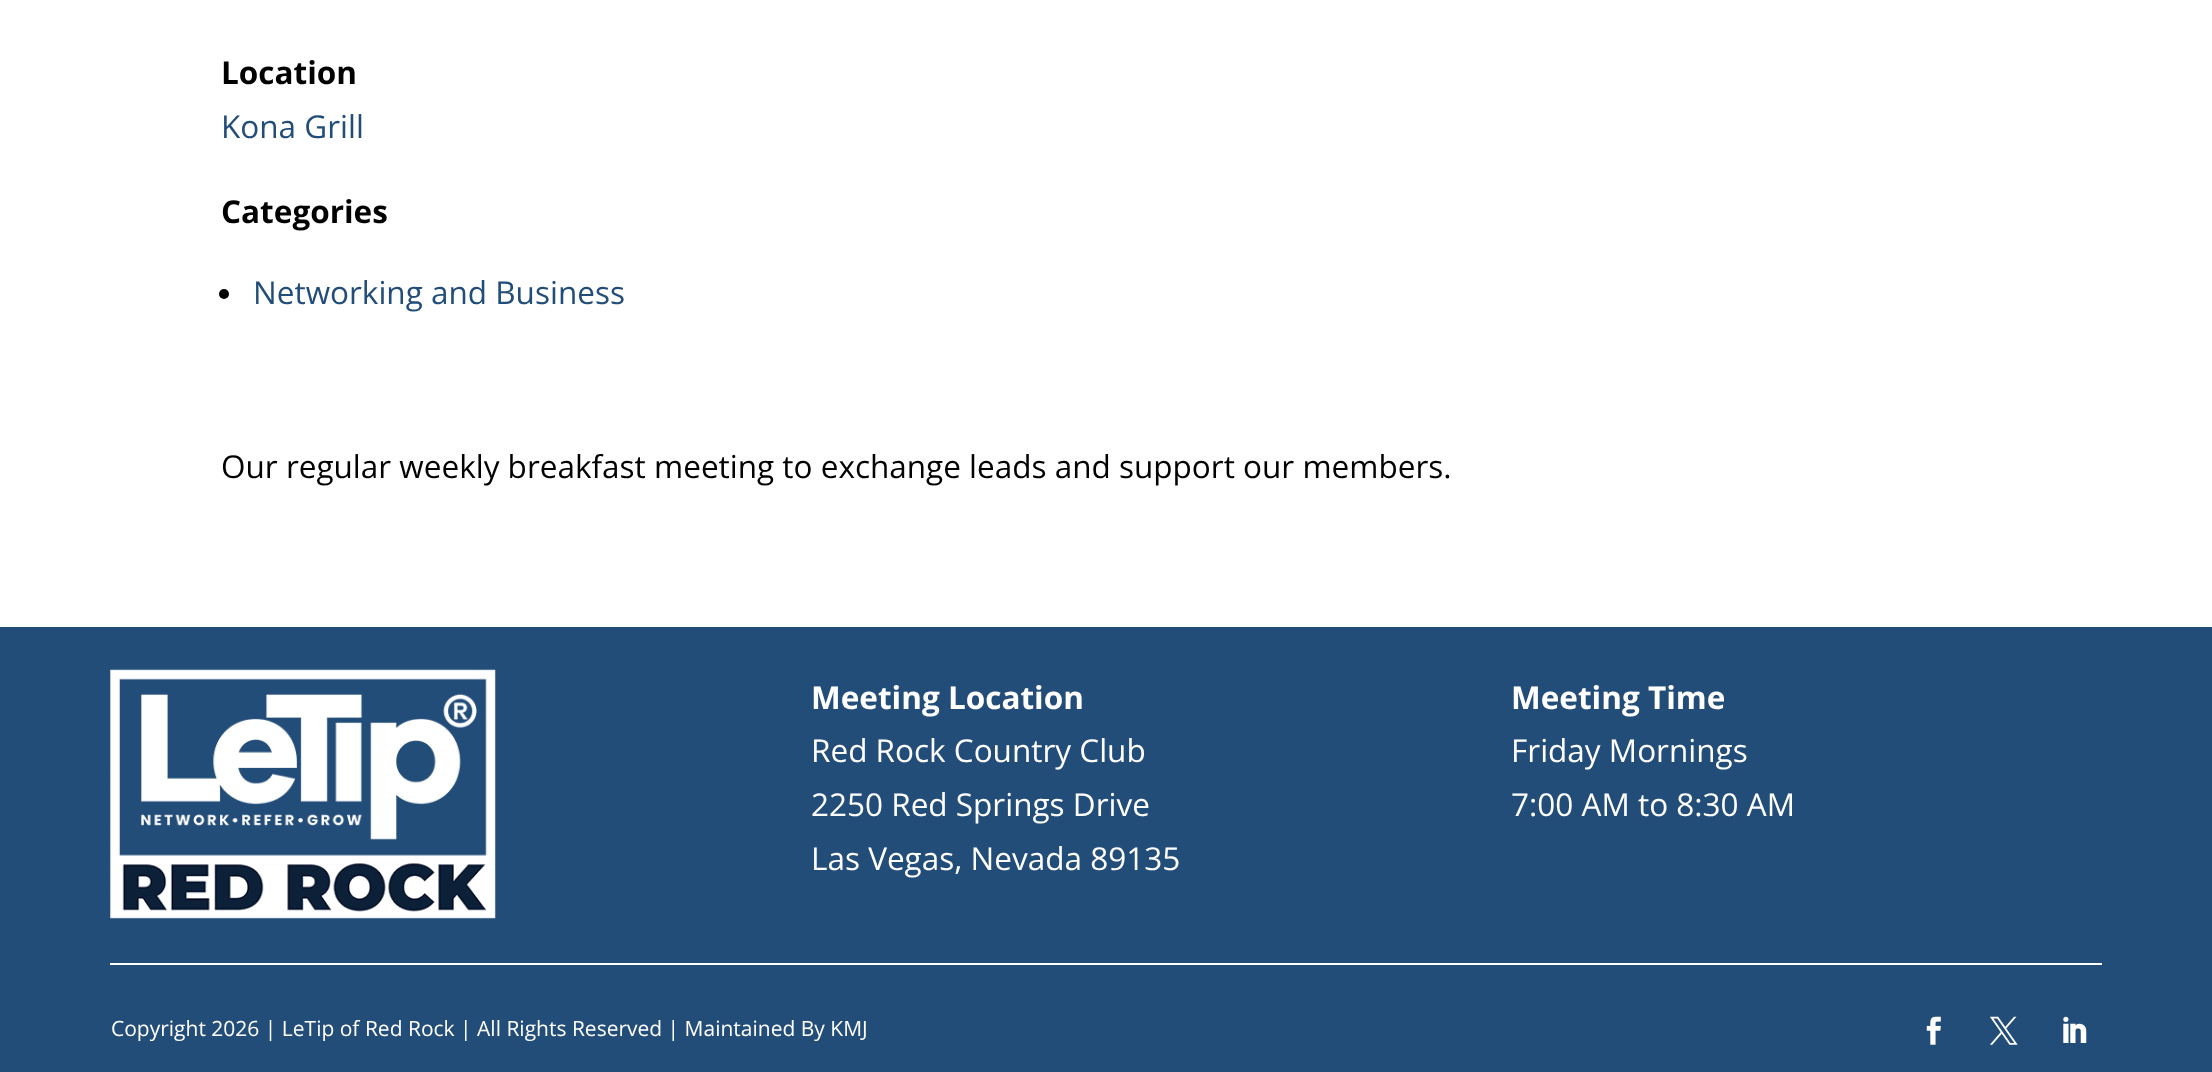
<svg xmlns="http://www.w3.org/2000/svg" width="2212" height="1072">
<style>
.a{font:bold 31.5px Open Sans;fill:#000}
.b{font:31.5px Open Sans;fill:#234d79}
.c{font:31.5px Open Sans;fill:#000}
.d{font:bold 31.5px Open Sans;fill:#fff}
.e{font:31.5px Open Sans;fill:#fff}
.f{font:21px Open Sans;fill:#fff}
</style>
<rect width="100%" height="100%" fill="#fff"/>
<circle fill="#000" cx="224" cy="294" r="5"/>
<path fill="#234d79" d="M0 627h2212v445H0z"/>
<image href="1.png" x="110" y="669" width="386" height="250"/>
<path fill="#fff" d="M110 963h1992v2H110z"/>
<image href="2.png" x="1926" y="1016" width="15" height="29"/>
<image href="3.png" x="1990" y="1016" width="28" height="29"/>
<image href="4.png" x="2063" y="1016" width="24" height="27"/>
<text class="a" x="221" y="84">Location</text>
<text class="b" x="221" y="138">Kona Grill</text>
<text class="a" x="221" y="223">Categories</text>
<text class="b" x="253" y="304">Networking and Business</text>
<text class="c" x="221" y="478">Our regular weekly breakfast meeting to exchange leads and support our members.</text>
<text class="d" x="811" y="709">Meeting Location</text>
<text class="e" x="811" y="762">Red Rock Country Club</text>
<text class="e" x="811" y="816">2250 Red Springs Drive</text>
<text class="e" x="811" y="870">Las Vegas, Nevada 89135</text>
<text class="d" x="1511" y="709">Meeting Time</text>
<text class="e" x="1511" y="762">Friday Mornings</text>
<text class="e" x="1511" y="816">7:00 AM to 8:30 AM</text>
<text class="f" x="111" y="1036">Copyright 2026 | LeTip of Red Rock | All Rights Reserved | Maintained By KMJ</text>
</svg>
